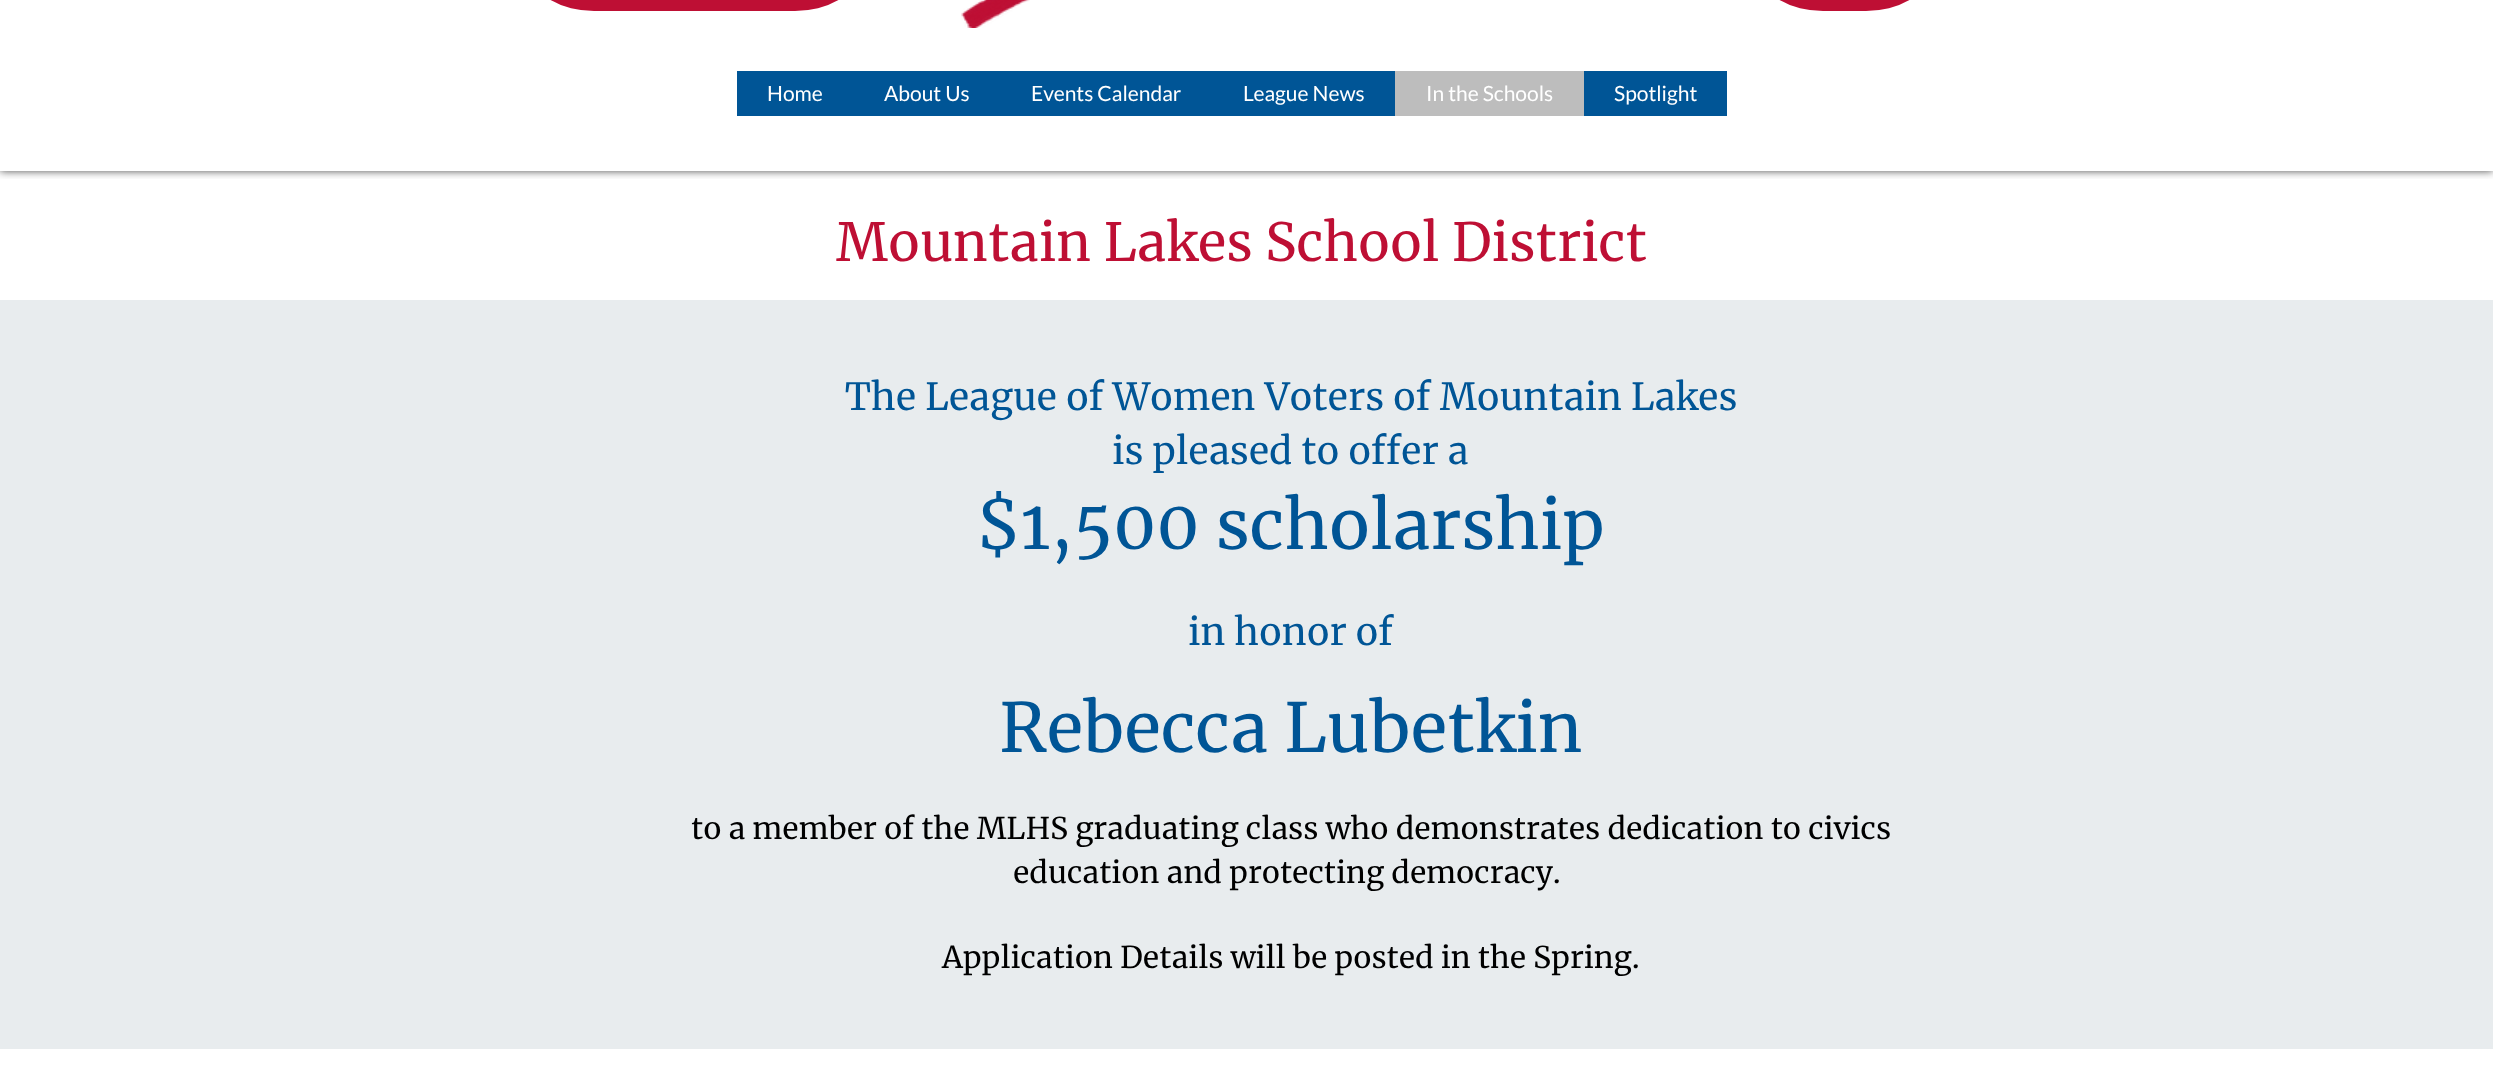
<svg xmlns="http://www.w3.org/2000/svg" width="2493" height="1071">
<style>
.a{font:21px Lato;fill:#fff}
.b{font:52.5px Merriweather;fill:#be0f34}
.c{font:37.5px Merriweather;fill:#005596}
.d{font:67.5px Merriweather;fill:#005596}
.e{font:30px Merriweather;fill:#000}
</style>
<defs>
<clipPath id="clip1"><path d="M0 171h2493v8H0z"/></clipPath>
</defs>
<rect width="100%" height="100%" fill="#fff"/>
<g clip-path="url(#clip1)">
<path fill="#000000b3" filter="blur(4px)" d="M0 -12h2493v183H0z"/>
</g>
<rect fill="#be0f34" x="534" y="-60" width="321" height="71" rx="60"/>
<rect fill="#be0f34" x="1763" y="-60" width="163" height="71" rx="60"/>
<image href="1.png" x="961" y="0" width="69" height="28"/>
<path fill="#005596" d="M737 71h658v45H737z"/>
<path fill="#bdbdbd" d="M1395 71h189v45H1395z"/>
<path fill="#005596" d="M1584 71h143v45H1584z"/>
<path fill="#e8ecee" d="M0 300h2493v749H0z"/>
<text class="a" x="767" y="101">Home</text>
<text class="a" x="884" y="101">About Us</text>
<text class="a" x="1031" y="101">Events Calendar</text>
<text class="a" x="1243" y="101">League News</text>
<text class="a" x="1426" y="101">In the Schools</text>
<text class="a" x="1614" y="101">Spotlight</text>
<text class="b" x="836" y="261">Mountain Lakes School District</text>
<text class="c" x="845" y="410">The League of Women Voters of Mountain Lakes</text>
<text class="c" x="1112" y="464">is pleased to offer a</text>
<text class="d" x="976" y="549">$1,500 scholarship</text>
<text class="c" x="1188" y="645">in honor of</text>
<text class="d" x="999" y="752">Rebecca Lubetkin</text>
<text class="e" x="691" y="839">to a member of the MLHS graduating class who demonstrates dedication to civics</text>
<text class="e" x="1013" y="883">education and protecting democracy.</text>
<text class="e" x="942" y="968">Application Details will be posted in the Spring.</text>
</svg>
